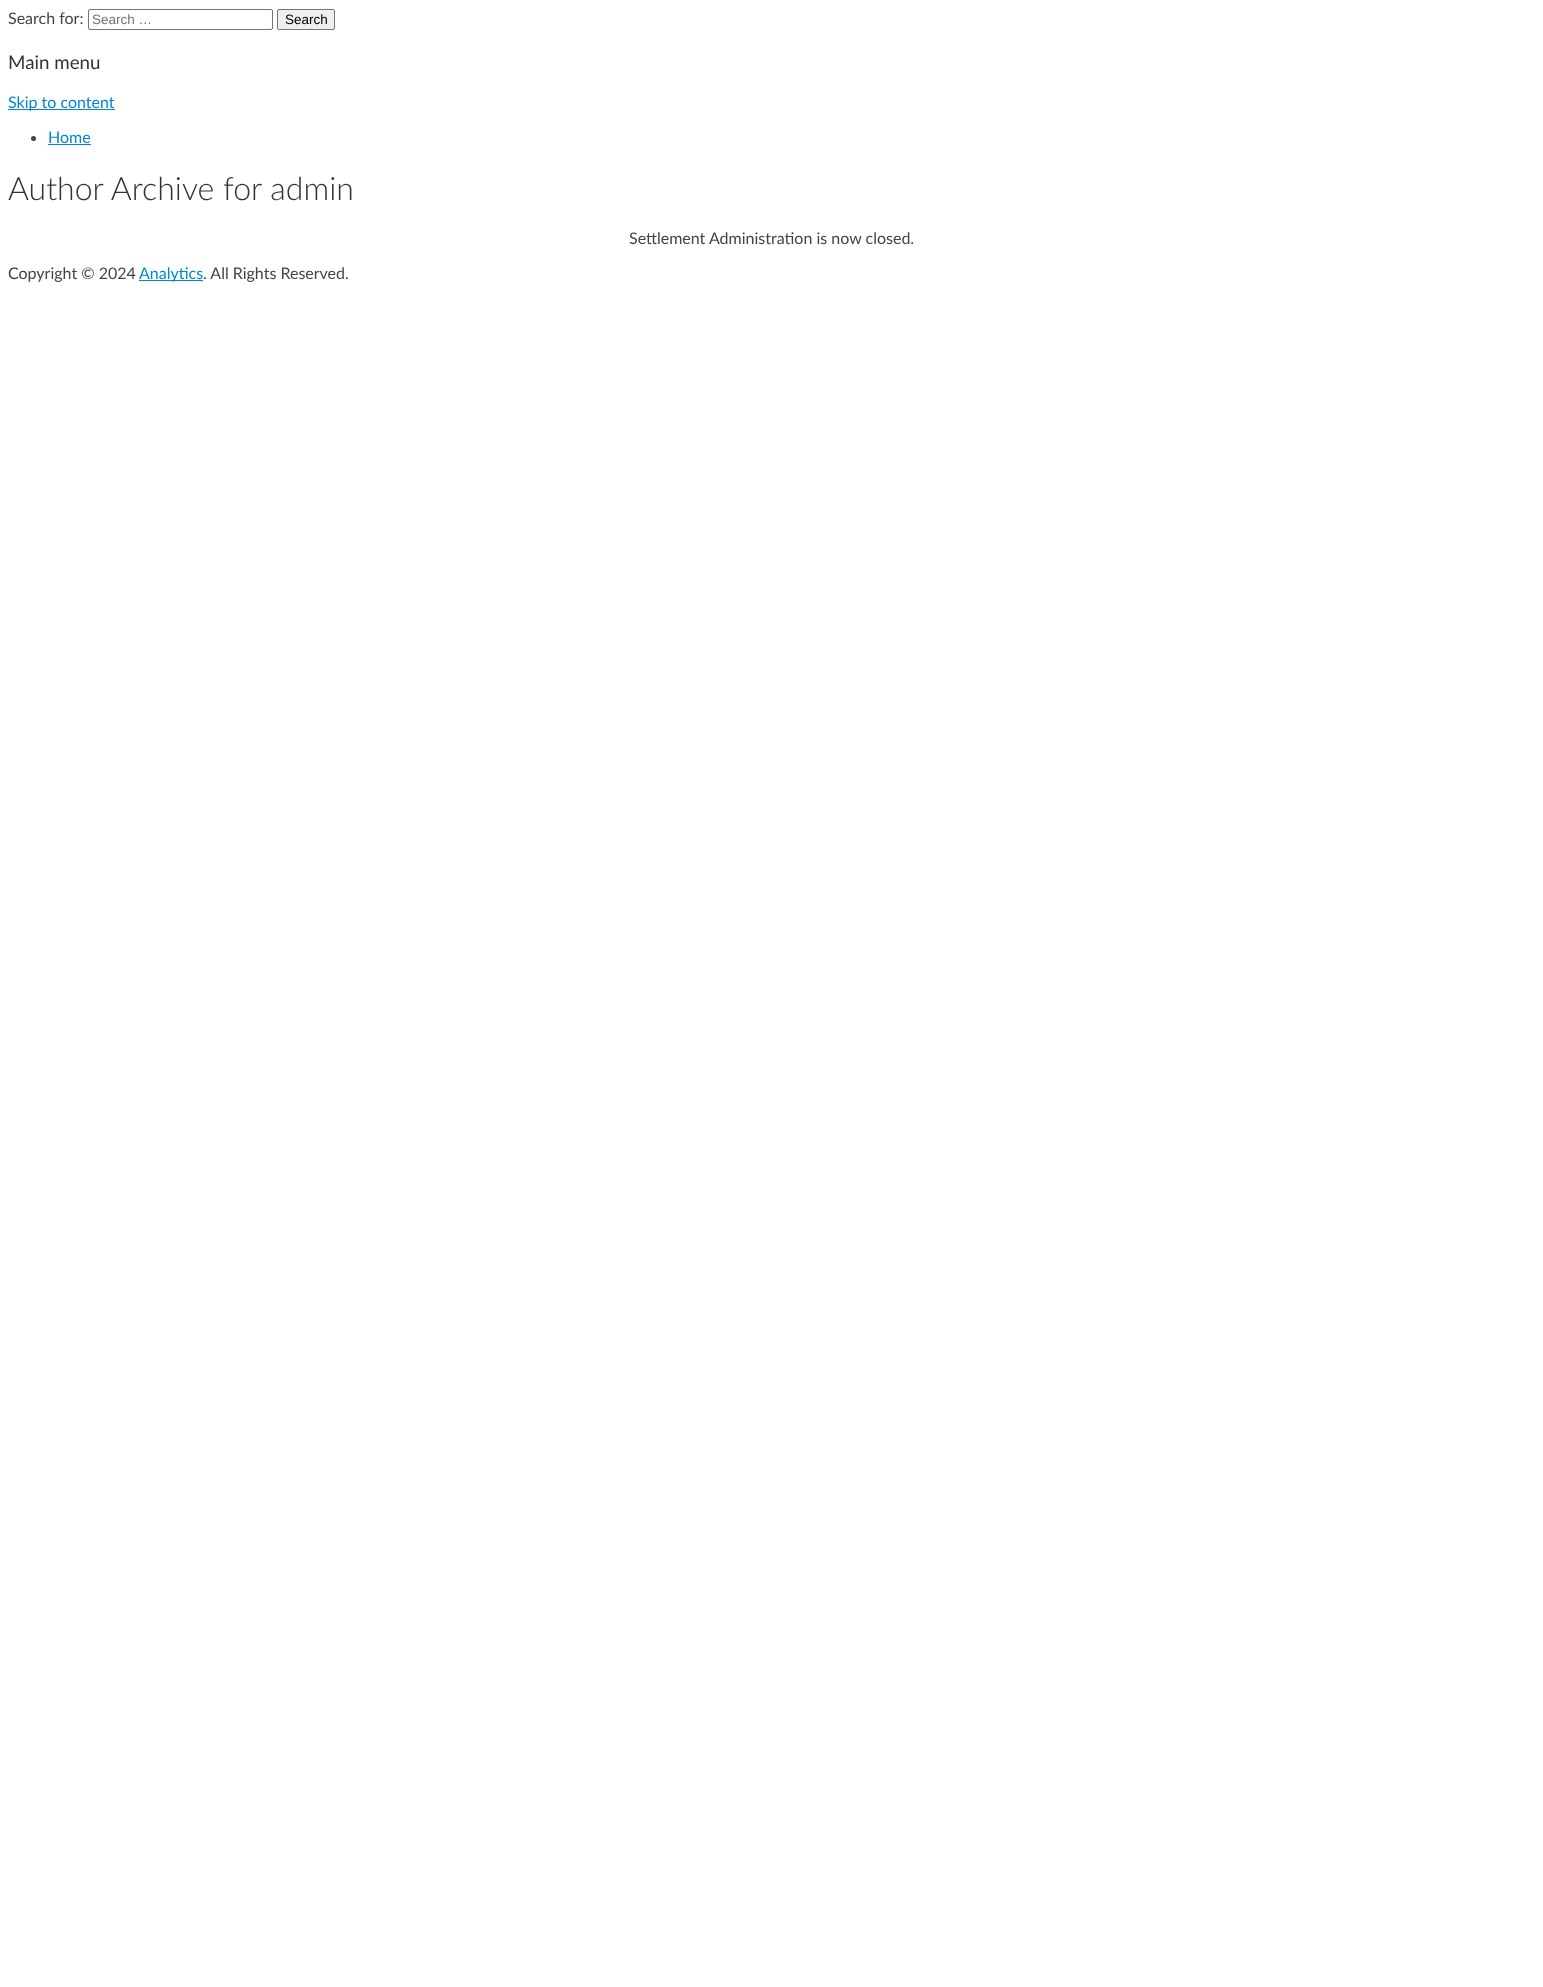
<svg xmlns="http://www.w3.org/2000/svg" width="1543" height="1987">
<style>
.a{font:16px Lato;fill:#444}
.b{font:13.5px Liberation Sans;fill:#757575}
.c{font:13.5px Liberation Sans;fill:#000}
.d{font:18.75px Lato;fill:#333}
.e{font:16px Lato;fill:#08c}
.f{font:300 32px Lato;fill:#333}
</style>
<rect width="100%" height="100%" fill="#fff"/>
<rect fill="none" stroke="#767676" x="88.5" y="9.5" width="184" height="20" rx="1.5"/>
<rect fill="#efefef" stroke="#767676" x="277.5" y="9.5" width="57" height="20" rx="1.5"/>
<path fill="#08c" d="M8 109h107v1H8z"/>
<circle fill="#444" cx="33.5" cy="138.5" r="2.5"/>
<path fill="#08c" d="M48 144h43v1H48z"/>
<path fill="#08c" d="M139 280h64v1H139z"/>
<text class="a" x="8" y="24">Search for:</text>
<text class="b" x="92" y="24">Search …</text>
<text class="c" x="285" y="24">Search</text>
<text class="d" x="8" y="69">Main menu</text>
<text class="e" x="8" y="108">Skip to content</text>
<text class="e" x="48" y="143">Home</text>
<text class="f" x="8" y="200">Author Archive for admin</text>
<text class="a" x="629" y="244">Settlement Administration is now closed.</text>
<text class="a" x="8" y="279">Copyright © 2024</text>
<text class="e" x="139" y="279">Analytics</text>
<text class="a" x="203" y="279">. All Rights Reserved.</text>
</svg>
